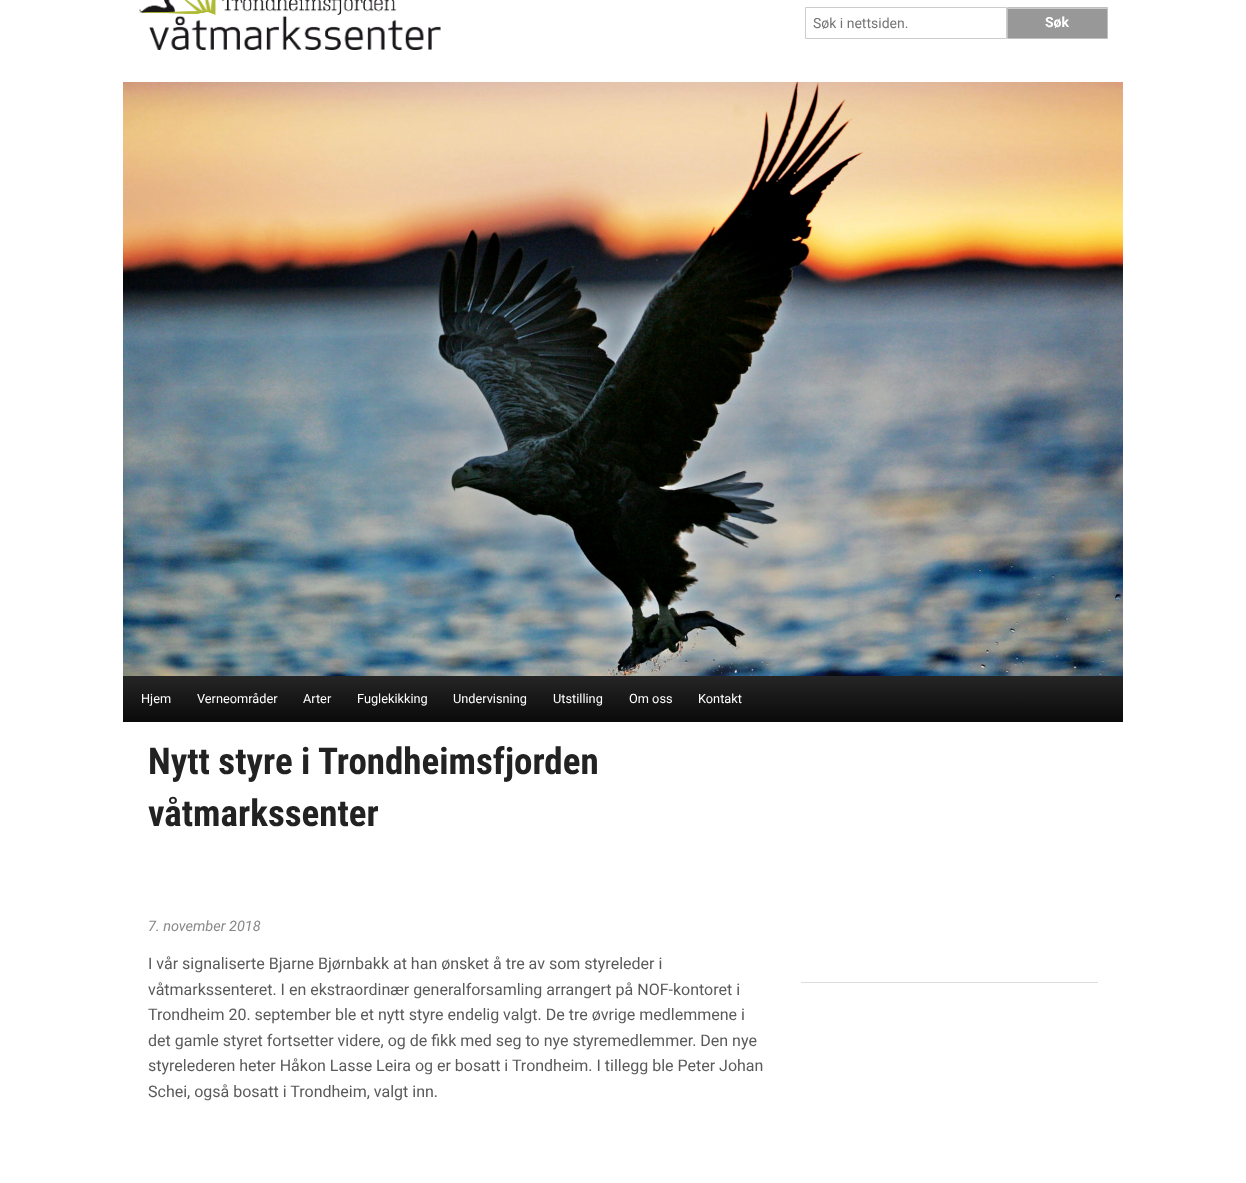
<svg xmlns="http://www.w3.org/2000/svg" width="1246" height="1183">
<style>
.a{font:14px Roboto;fill:#757575}
.b{font:bold 14px Roboto;fill:#fff}
.c{font:12.75px Roboto;fill:#fff}
.d{font:bold 37px Roboto Condensed;fill:#222}
.e{font:italic 14.5px Roboto;fill:#888}
.f{font:16px Roboto;fill:#5a5a5a}
</style>
<defs>
<linearGradient id="g1" gradientUnits="userSpaceOnUse" x1="623" y1="676" x2="623" y2="722"><stop offset="0" stop-color="#252525"/><stop offset="1" stop-color="#0a0a0a"/></linearGradient>
</defs>
<rect width="100%" height="100%" fill="#fff"/>
<image href="1.png" x="138" y="0" width="303" height="50"/>
<path fill="none" stroke="#ccc" d="M805.5 7.5h201v31H805.5z"/>
<path fill="#989898" d="M1008 9h99v29H1008z"/>
<path fill="#ccc" d="M1008 8h99v1H1008z"/>
<path fill="none" stroke="#c0c0c0" d="M1007.5 7.5h100v31H1007.5z"/>
<image href="2.png" x="123" y="82" width="1000" height="594"/>
<path fill="url(#g1)" d="M123 676h1000v46H123z"/>
<path fill="#ddd" d="M801 982h297v1H801z"/>
<text class="a" x="813" y="28">Søk i nettsiden.</text>
<text class="b" x="1045" y="27">Søk</text>
<text class="c" x="141" y="703">Hjem</text>
<text class="c" x="197" y="703">Verneområder</text>
<text class="c" x="303" y="703">Arter</text>
<text class="c" x="357" y="703">Fuglekikking</text>
<text class="c" x="453" y="703">Undervisning</text>
<text class="c" x="553" y="703">Utstilling</text>
<text class="c" x="629" y="703">Om oss</text>
<text class="c" x="698" y="703">Kontakt</text>
<text class="d" x="148" y="774">Nytt styre i Trondheimsfjorden</text>
<text class="d" x="148" y="826">våtmarkssenter</text>
<text class="e" x="148" y="931">7. november 2018</text>
<text class="f" x="148" y="969">I vår signaliserte Bjarne Bjørnbakk at han ønsket å tre av som styreleder i</text>
<text class="f" x="148" y="995">våtmarkssenteret. I en ekstraordinær generalforsamling arrangert på NOF-kontoret i</text>
<text class="f" x="148" y="1020">Trondheim 20. september ble et nytt styre endelig valgt. De tre øvrige medlemmene i</text>
<text class="f" x="148" y="1046">det gamle styret fortsetter videre, og de fikk med seg to nye styremedlemmer. Den nye</text>
<text class="f" x="148" y="1071">styrelederen heter Håkon Lasse Leira og er bosatt i Trondheim. I tillegg ble Peter Johan</text>
<text class="f" x="148" y="1097">Schei, også bosatt i Trondheim, valgt inn.</text>
</svg>
